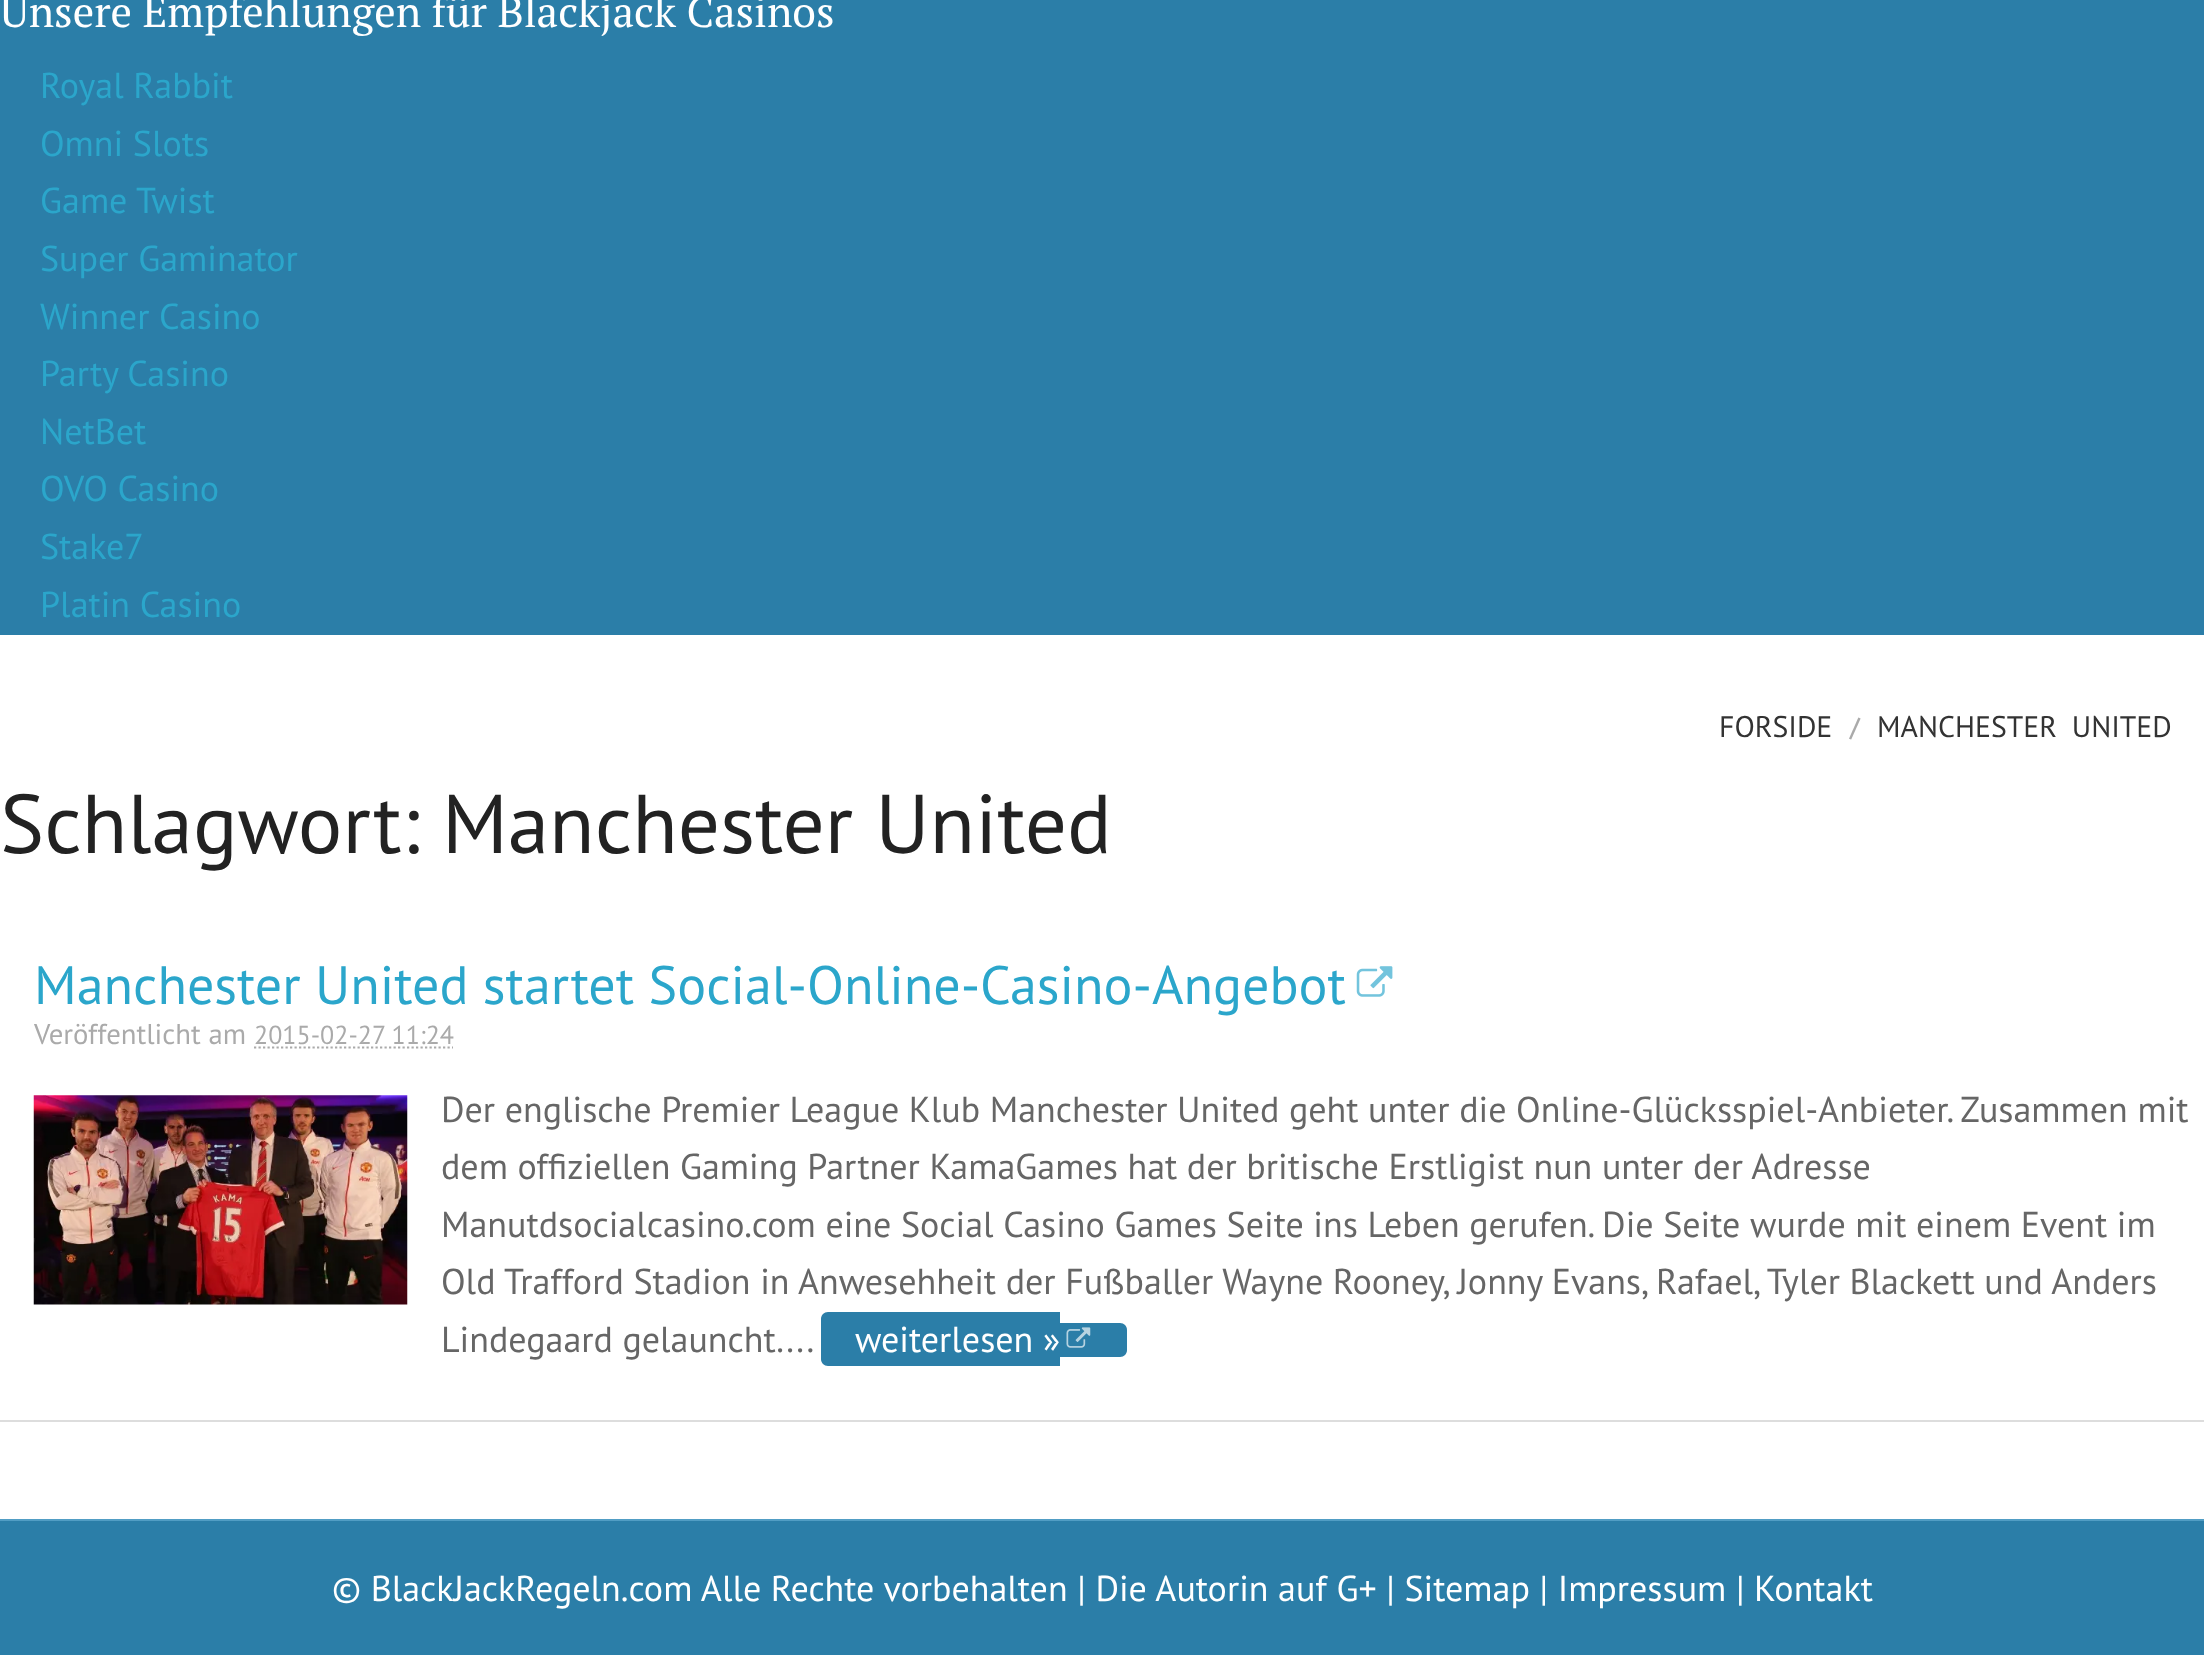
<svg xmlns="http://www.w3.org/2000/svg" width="2204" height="1655">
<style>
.a{font:42.75px PT Serif;fill:#fff}
.b{font:36px PT Sans;fill:#2ba6cb}
.c{font:29.75px PT Sans;fill:#333}
.d{font:bold 25px PT Sans;fill:#aaa}
.e{font:83.25px PT Sans;fill:#222}
.f{font:54px PT Sans;fill:#2ba6cb}
.g{font:28.75px PT Sans;fill:#aaa}
.h{font:26px PT Sans;fill:#aaa}
.i{font:36px PT Sans;fill:#666}
.j{font:36px PT Sans;fill:#fff}
</style>
<rect width="100%" height="100%" fill="#fff"/>
<path fill="#2b7ea8" d="M0 0h2204v635H0z"/>
<image href="1.png" x="1356" y="966" width="37" height="31"/>
<path fill="none" stroke="#aaa" stroke-width="2.2" stroke-dasharray="2.25 2.25" d="M254 1047.5h199"/>
<image href="2.png" x="33" y="1095" width="375" height="210"/>
<path fill="#2b7ea8" d="M828 1312h232v54h-232c-4 0-7-3-7-7v-40c0-4 3-7 7-7z"/>
<path fill="#2b7ea8" d="M1060 1323h60c4 0 7 3 7 7v20c0 4-3 7-7 7h-60z"/>
<image href="3.png" x="1066" y="1327" width="25" height="21"/>
<path fill="#ddd" d="M0 1420h2204v2H0z"/>
<path fill="#519dc4" d="M0 1519h2204v2H0z"/>
<path fill="#2b7ea8" d="M0 1521h2204v134H0z"/>
<text class="a" x="0" y="27">Unsere Empfehlungen für Blackjack Casinos</text>
<text class="b" x="40" y="98">Royal Rabbit</text>
<text class="b" x="40" y="156">Omni Slots</text>
<text class="b" x="40" y="213">Game Twist</text>
<text class="b" x="40" y="271">Super Gaminator</text>
<text class="b" x="40" y="329">Winner Casino</text>
<text class="b" x="40" y="386">Party Casino</text>
<text class="b" x="40" y="444">NetBet</text>
<text class="b" x="40" y="501">OVO Casino</text>
<text class="b" x="40" y="559">Stake7</text>
<text class="b" x="40" y="617">Platin Casino</text>
<text class="c" x="1719" y="737">FORSIDE</text>
<text class="d" x="1850" y="736">/</text>
<text class="c" x="1877" y="737" word-spacing="7">MANCHESTER UNITED</text>
<text class="e" x="0" y="853">Schlagwort: Manchester United</text>
<text class="f" x="34" y="1004">Manchester United startet Social-Online-Casino-Angebot</text>
<text class="g" x="34" y="1044">Veröffentlicht am</text>
<text class="h" x="254" y="1044">2015-02-27 11:24</text>
<text class="i" x="441" y="1122">Der englische Premier League Klub Manchester United geht unter die Online-Glücksspiel-Anbieter. Zusammen mit</text>
<text class="i" x="441" y="1179">dem offiziellen Gaming Partner KamaGames hat der britische Erstligist nun unter der Adresse</text>
<text class="i" x="441" y="1237">Manutdsocialcasino.com eine Social Casino Games Seite ins Leben gerufen. Die Seite wurde mit einem Event im</text>
<text class="i" x="441" y="1294">Old Trafford Stadion in Anwesehheit der Fußballer Wayne Rooney, Jonny Evans, Rafael, Tyler Blackett und Anders</text>
<text class="i" x="441" y="1352">Lindegaard gelauncht....</text>
<text class="j" x="855" y="1352">weiterlesen »</text>
<text class="j" x="332" y="1601">© BlackJackRegeln.com Alle Rechte vorbehalten | Die Autorin auf G+ | Sitemap | Impressum | Kontakt</text>
</svg>
